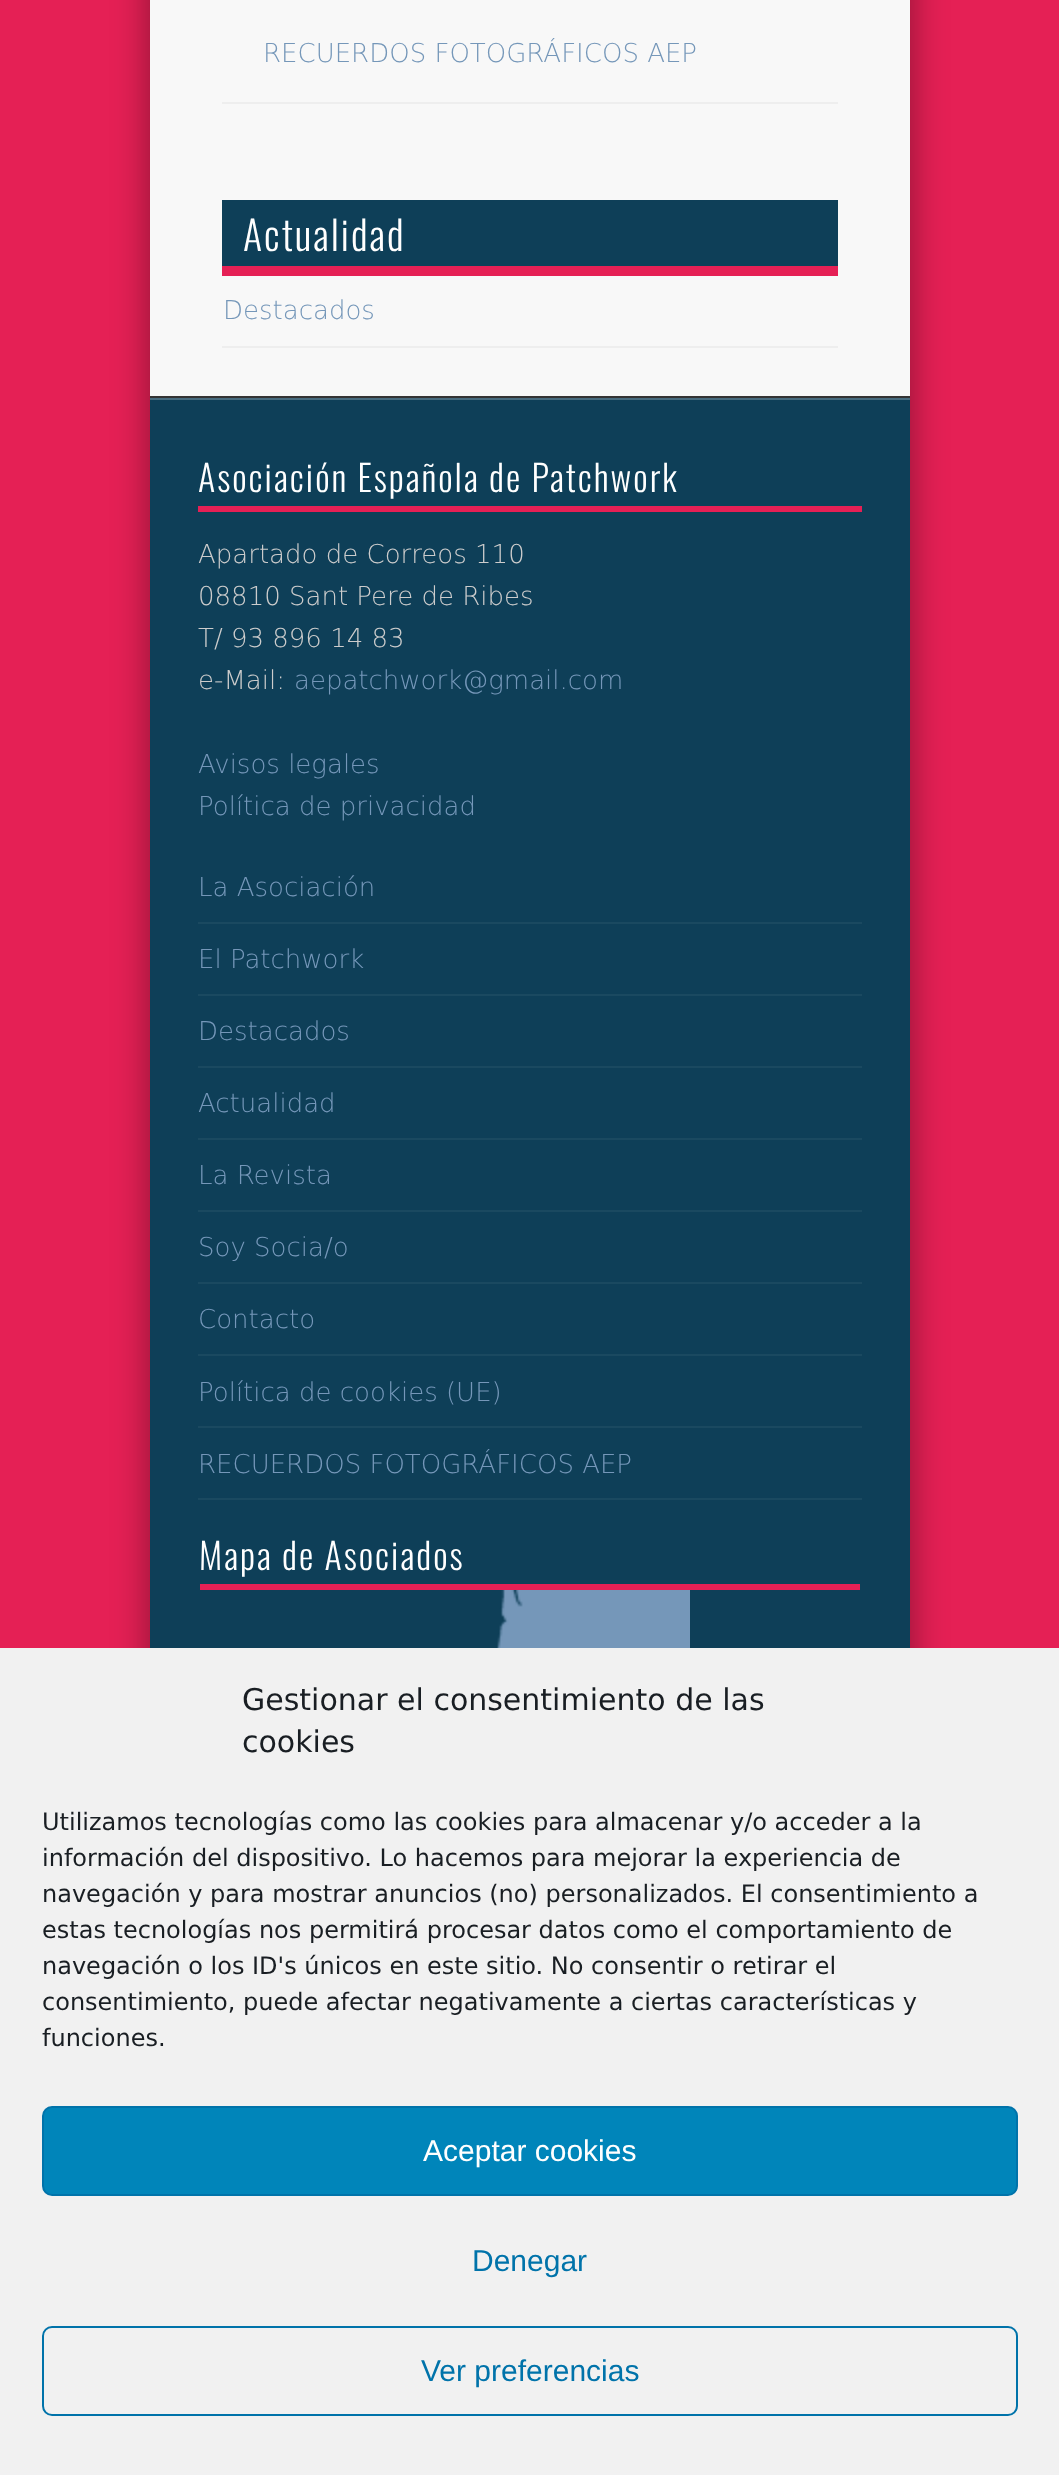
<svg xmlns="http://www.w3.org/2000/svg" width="1059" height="2475">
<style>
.a{font:200 26px DejaVu Sans;fill:#7597b9}
.b{font:300 40px Oswald;letter-spacing:2px;fill:#fff}
.c{font:300 36px Oswald;letter-spacing:2px;fill:#fff}
.d{font:200 26px DejaVu Sans;fill:#ccc}
.e{font:30px DejaVu Sans;fill:#191e23}
.f{font:24px DejaVu Sans;fill:#191e23}
.g{font:30px Liberation Sans;fill:#fff}
.h{font:30px Liberation Sans;fill:#0073aa}
</style>
<rect width="100%" height="100%" fill="#e52055"/>
<path fill="#00000066" filter="blur(18px)" d="M150 -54h760v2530H150z"/>
<path fill="#f8f8f8" d="M150 0h760v396H150z"/>
<path fill="#eee" d="M222 102h616v2H222z"/>
<path fill="#0e3f58" d="M222 200h616v66H222z"/>
<path fill="#e52055" d="M222 266h616v10H222z"/>
<path fill="#eee" d="M222 346h616v2H222z"/>
<path fill="#343434" d="M150 396h760v2H150z"/>
<path fill="#0e3f58" d="M150 400h760v1248H150z"/>
<path fill="#476c7f" d="M150 398h760v2H150z"/>
<path fill="#e52055" d="M198 506h664v6H198z"/>
<path fill="#1a4960" d="M198 922h664v2H198z"/>
<path fill="#1a4960" d="M198 994h664v2H198z"/>
<path fill="#1a4960" d="M198 1066h664v2H198z"/>
<path fill="#1a4960" d="M198 1138h664v2H198z"/>
<path fill="#1a4960" d="M198 1210h664v2H198z"/>
<path fill="#1a4960" d="M198 1282h664v2H198z"/>
<path fill="#1a4960" d="M198 1354h664v2H198z"/>
<path fill="#1a4960" d="M198 1426h664v2H198z"/>
<path fill="#1a4960" d="M198 1498h664v2H198z"/>
<path fill="#e52055" d="M200 1584h660v6H200z"/>
<image href="1.png" x="497" y="1590" width="193" height="58"/>
<path fill="#f1f1f1" d="M0 1648h1059v827H0z"/>
<rect fill="#0085ba" stroke="#0073aa" stroke-width="2" x="43" y="2107" width="974" height="88" rx="9"/>
<rect fill="none" stroke="#0073aa" stroke-width="2" x="43" y="2327" width="974" height="88" rx="9"/>
<text class="a" x="263" y="62">RECUERDOS FOTOGRÁFICOS AEP</text>
<text class="b" x="243" y="251">Actualidad</text>
<text class="a" x="223" y="319">Destacados</text>
<text class="c" x="198" y="492">Asociación Española de Patchwork</text>
<text class="d" x="198" y="563">Apartado de Correos 110</text>
<text class="d" x="198" y="605">08810 Sant Pere de Ribes</text>
<text class="d" x="198" y="647">T/ 93 896 14 83</text>
<text class="d" x="198" y="689">e-Mail:</text>
<text class="a" x="294" y="689">aepatchwork@gmail.com</text>
<text class="a" x="198" y="773">Avisos legales</text>
<text class="a" x="198" y="815">Política de privacidad</text>
<text class="a" x="198" y="896">La Asociación</text>
<text class="a" x="198" y="968">El Patchwork</text>
<text class="a" x="198" y="1040">Destacados</text>
<text class="a" x="198" y="1112">Actualidad</text>
<text class="a" x="198" y="1184">La Revista</text>
<text class="a" x="198" y="1256">Soy Socia/o</text>
<text class="a" x="198" y="1328">Contacto</text>
<text class="a" x="198" y="1401">Política de cookies (UE)</text>
<text class="a" x="198" y="1473">RECUERDOS FOTOGRÁFICOS AEP</text>
<text class="c" x="199" y="1570">Mapa de Asociados</text>
<text class="e" x="242" y="1710">Gestionar el consentimiento de las</text>
<text class="e" x="242" y="1752">cookies</text>
<text class="f" x="42" y="1830">Utilizamos tecnologías como las cookies para almacenar y/o acceder a la</text>
<text class="f" x="42" y="1866">información del dispositivo. Lo hacemos para mejorar la experiencia de</text>
<text class="f" x="42" y="1902">navegación y para mostrar anuncios (no) personalizados. El consentimiento a</text>
<text class="f" x="42" y="1938">estas tecnologías nos permitirá procesar datos como el comportamiento de</text>
<text class="f" x="42" y="1974">navegación o los ID's únicos en este sitio. No consentir o retirar el</text>
<text class="f" x="42" y="2010">consentimiento, puede afectar negativamente a ciertas características y</text>
<text class="f" x="42" y="2046">funciones.</text>
<text class="g" x="423" y="2161">Aceptar cookies</text>
<text class="h" x="472" y="2271">Denegar</text>
<text class="h" x="421" y="2381">Ver preferencias</text>
</svg>
